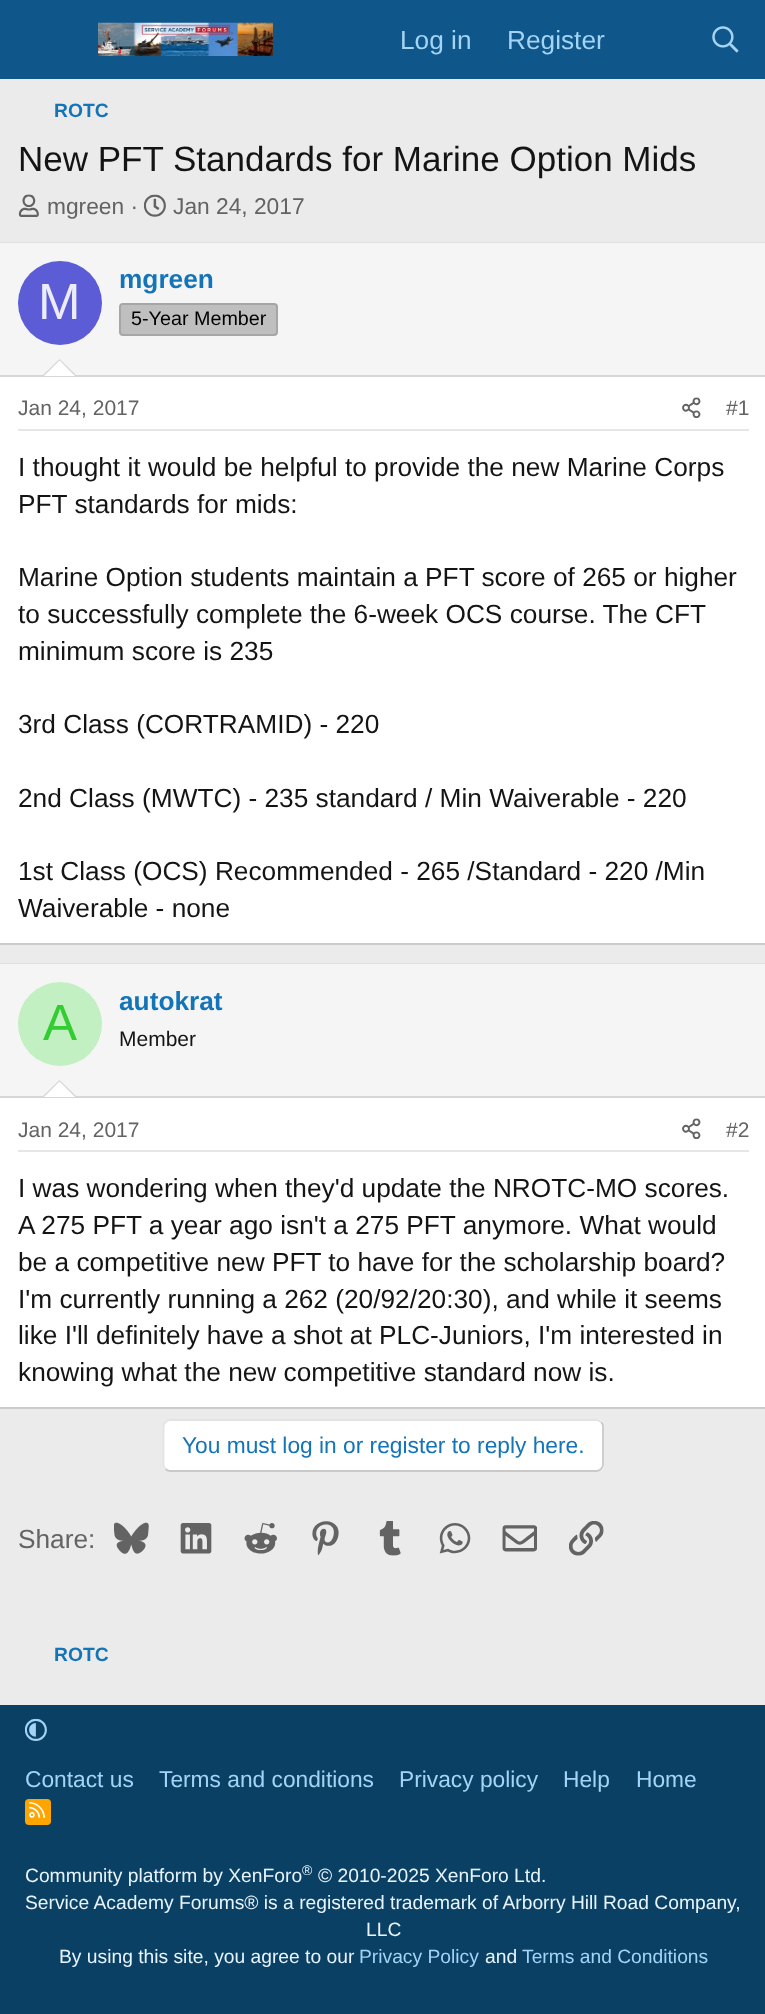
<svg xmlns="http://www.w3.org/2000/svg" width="765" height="2014">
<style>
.a{font:26.25px Liberation Sans;fill:#a3d4f5}
.b{font:bold 19.25px Liberation Sans;fill:#1474b8}
.c{font:35px Liberation Sans;fill:#141414}
.d{font:22.75px Liberation Sans;fill:#636363}
.e{font:51px Liberation Sans;fill:#ebebfa}
.f{font:bold 26.25px Liberation Sans;fill:#1474b8}
.g{font:19.75px Liberation Sans;fill:#000}
.h{font:21px Liberation Sans;fill:#636363}
.i{font:26.25px Liberation Sans;fill:#141414}
.j{font:51px Liberation Sans;fill:#3c3}
.k{font:21px Liberation Sans;fill:#141414}
.l{font:22.75px Liberation Sans;fill:#1474b8}
.m{font:26.25px Liberation Sans;fill:#636363}
.n{font:22.75px Liberation Sans;fill:#a3d4f5}
.o{font:19.25px Liberation Sans;fill:#e8f4fc}
.p{font:14px Liberation Sans;fill:#e8f4fc}
.q{font:19.25px Liberation Sans;fill:#a3d4f5}
</style>
<rect width="100%" height="100%" fill="#ebebeb"/>
<path fill="#0f578a" d="M0 0h765v79H0z"/>
<image href="1.png" x="98" y="22" width="175" height="34"/>
<image href="2.png" x="712" y="26" width="27" height="27"/>
<image href="3.png" x="18" y="194" width="21" height="23"/>
<image href="4.png" x="143" y="194" width="23" height="23"/>
<path fill="#fff" d="M0 377h765v566H0z"/>
<path fill="#e0e0e0" d="M0 242h765v1H0z"/>
<path fill="#ccc" d="M0 943h765v2H0z"/>
<path fill="#f5f5f5" d="M0 243h765v132H0z"/>
<path fill="#d6d6d6" d="M0 375h765v2H0z"/>
<circle fill="#5c5cd6" cx="60" cy="303" r="42"/>
<rect fill="#bfbfbf" stroke="#a6a6a6" stroke-width="2" x="120" y="304" width="157" height="31" rx="3"/>
<path fill="#d6d6d6" d="M77 376h-35l17.5-17z"/>
<path fill="#fff" d="M75 376h-31l15.5-15.5z"/>
<path fill="#e6e6e6" d="M18 429h731v2H18z"/>
<image href="5.png" x="682" y="397" width="19" height="21"/>
<path fill="#fff" d="M0 1098h765v309H0z"/>
<path fill="#e0e0e0" d="M0 963h765v1H0z"/>
<path fill="#ccc" d="M0 1407h765v2H0z"/>
<path fill="#f5f5f5" d="M0 964h765v132H0z"/>
<path fill="#d6d6d6" d="M0 1096h765v2H0z"/>
<circle fill="#c2f0c2" cx="60" cy="1024" r="42"/>
<path fill="#d6d6d6" d="M77 1097h-35l17.5-17z"/>
<path fill="#fff" d="M75 1097h-31l15.5-15.5z"/>
<path fill="#e6e6e6" d="M18 1150h731v2H18z"/>
<image href="5.png" x="682" y="1118" width="19" height="21"/>
<rect fill="#fff" x="163" y="1419" width="441" height="53" rx="7"/>
<path fill="none" stroke="#c9c9c9" stroke-width="1.8" d="M601 1422c1 1 2 2.5 2 4v39c0 1.5-1 3-2 4c-1 1-2.5 2-4 2h-427c-2 0-3.5-1-4.5-2"/>
<path fill="none" stroke="#e3e3e3" stroke-width="1.8" d="M165.5 1469c-1-1-2-2.5-2-4v-39c0-1.5 1-3 2-4c1-1 2.5-2 4.5-2h427c1.5 0 3 1 4 2"/>
<image href="6.png" x="114" y="1522" width="35" height="32"/>
<image href="7.png" x="180" y="1523" width="32" height="31"/>
<image href="8.png" x="244" y="1523" width="33" height="31"/>
<image href="9.png" x="312" y="1521" width="27" height="35"/>
<image href="10.png" x="379" y="1521" width="22" height="35"/>
<image href="11.png" x="439" y="1523" width="32" height="31"/>
<image href="12.png" x="502" y="1525" width="35" height="27"/>
<image href="13.png" x="569" y="1521" width="35" height="35"/>
<path fill="#0b4065" d="M0 1705h765v309H0z"/>
<image href="14.png" x="24" y="1718" width="23" height="23"/>
<rect fill="#ffa500" x="25" y="1799" width="26" height="26" rx="4"/>
<image href="15.png" x="29" y="1802" width="16" height="16"/>
<text class="a" x="400" y="49">Log in</text>
<text class="a" x="507" y="49">Register</text>
<text class="b" x="54" y="117">ROTC</text>
<text class="c" x="18" y="171">New PFT Standards for Marine Option Mids</text>
<text class="d" x="47" y="214">mgreen ·</text>
<text class="d" x="173" y="214">Jan 24, 2017</text>
<text class="e" x="38" y="319">M</text>
<text class="f" x="119" y="288">mgreen</text>
<text class="g" x="131" y="325">5-Year Member</text>
<text class="h" x="18" y="415">Jan 24, 2017</text>
<text class="h" x="726" y="415">#1</text>
<text class="i" x="18" y="476">I thought it would be helpful to provide the new Marine Corps</text>
<text class="i" x="18" y="513">PFT standards for mids:</text>
<text class="i" x="18" y="586">Marine Option students maintain a PFT score of 265 or higher</text>
<text class="i" x="18" y="623">to successfully complete the 6-week OCS course. The CFT</text>
<text class="i" x="18" y="660">minimum score is 235</text>
<text class="i" x="18" y="733">3rd Class (CORTRAMID) - 220</text>
<text class="i" x="18" y="807">2nd Class (MWTC) - 235 standard / Min Waiverable - 220</text>
<text class="i" x="18" y="880">1st Class (OCS) Recommended - 265 /Standard - 220 /Min</text>
<text class="i" x="18" y="917">Waiverable - none</text>
<text class="j" x="43" y="1040">A</text>
<text class="f" x="119" y="1010">autokrat</text>
<text class="k" x="119" y="1046">Member</text>
<text class="h" x="18" y="1137">Jan 24, 2017</text>
<text class="h" x="726" y="1137">#2</text>
<text class="i" x="18" y="1197">I was wondering when they'd update the NROTC-MO scores.</text>
<text class="i" x="18" y="1234">A 275 PFT a year ago isn't a 275 PFT anymore. What would</text>
<text class="i" x="18" y="1271">be a competitive new PFT to have for the scholarship board?</text>
<text class="i" x="18" y="1308">I'm currently running a 262 (20/92/20:30), and while it seems</text>
<text class="i" x="18" y="1344">like I'll definitely have a shot at PLC-Juniors, I'm interested in</text>
<text class="i" x="18" y="1381">knowing what the new competitive standard now is.</text>
<text class="l" x="182" y="1453">You must log in or register to reply here.</text>
<text class="m" x="18" y="1548">Share:</text>
<text class="b" x="54" y="1661">ROTC</text>
<text class="n" x="25" y="1787">Contact us</text>
<text class="n" x="159" y="1787">Terms and conditions</text>
<text class="n" x="399" y="1787">Privacy policy</text>
<text class="n" x="563" y="1787">Help</text>
<text class="n" x="636" y="1787">Home</text>
<text class="o" x="25" y="1882">Community platform by XenForo</text>
<text class="p" x="302" y="1875">®</text>
<text class="o" x="318" y="1882">© 2010-2025 XenForo Ltd.</text>
<text class="o" x="25" y="1909">Service Academy Forums® is a registered trademark of Arborry Hill Road Company,</text>
<text class="o" x="366" y="1936">LLC</text>
<text class="o" x="59" y="1963">By using this site, you agree to our</text>
<text class="q" x="359" y="1963">Privacy Policy</text>
<text class="o" x="485" y="1963">and</text>
<text class="q" x="522" y="1963">Terms and Conditions</text>
</svg>
